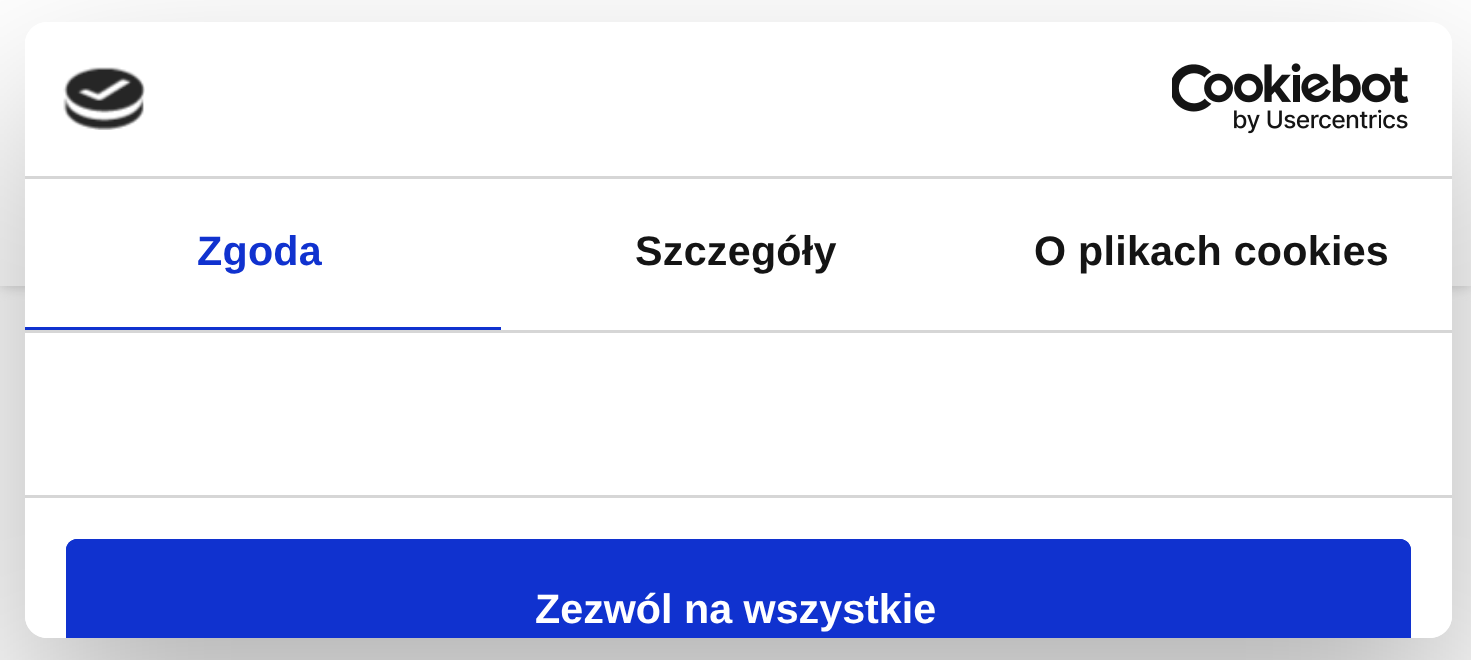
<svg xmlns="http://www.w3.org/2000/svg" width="1471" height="660">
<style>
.a{font:bold 41.25px Liberation Sans;letter-spacing:0.25px;fill:#1032cf}
.b{font:bold 41.25px Liberation Sans;letter-spacing:0.25px;fill:#141414}
.c{font:bold 41.25px Liberation Sans;fill:#fff}
</style>
<defs>
<clipPath id="clip1"><path d="M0 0h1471v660h-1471zm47 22h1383c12 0 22 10 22 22v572c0 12-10 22-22 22h-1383c-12 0-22-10-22-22v-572c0-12 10-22 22-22z" clip-rule="evenodd"/></clipPath>
</defs>
<rect width="100%" height="100%" fill="#fff"/>
<path fill="#ccc" filter="blur(7px)" d="M0 0h1471v286H0z"/>
<path fill="#fff" d="M0 0h1471v286H0z"/>
<g clip-path="url(#clip1)">
<rect fill="#0000004d" filter="blur(93.5px)" x="25" y="110" width="1427" height="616" rx="22"/>
</g>
<rect fill="#fff" x="25" y="22" width="1427" height="616" rx="22"/>
<path fill="#d6d6d6" d="M25 176h1427v3H25z"/>
<image href="1.png" x="63" y="67" width="82" height="63"/>
<image href="2.png" x="1172" y="63" width="237" height="71"/>
<path fill="#d6d6d6" d="M25 330h1427v3H25z"/>
<path fill="#1032cf" d="M25 327h476v3H25z"/>
<path fill="#d6d6d6" d="M25 495h1427v3H25z"/>
<path fill="#1032cf" d="M77 539h1323c6 0 11 5 11 11v88h-1345v-88c0-6 5-11 11-11z"/>
<path fill="#1032cf" d="M77 539c-6 0-11 5-11 11v88h6v-88c0-3 2-5 5-5h1323c3 0 5 2 5 5v88h6v-88c0-6-5-11-11-11z"/>
<text class="a" x="197" y="265">Zgoda</text>
<text class="b" x="635" y="265">Szczegóły</text>
<text class="b" x="1034" y="265">O plikach cookies</text>
<text class="c" x="535" y="623">Zezwól na wszystkie</text>
</svg>
